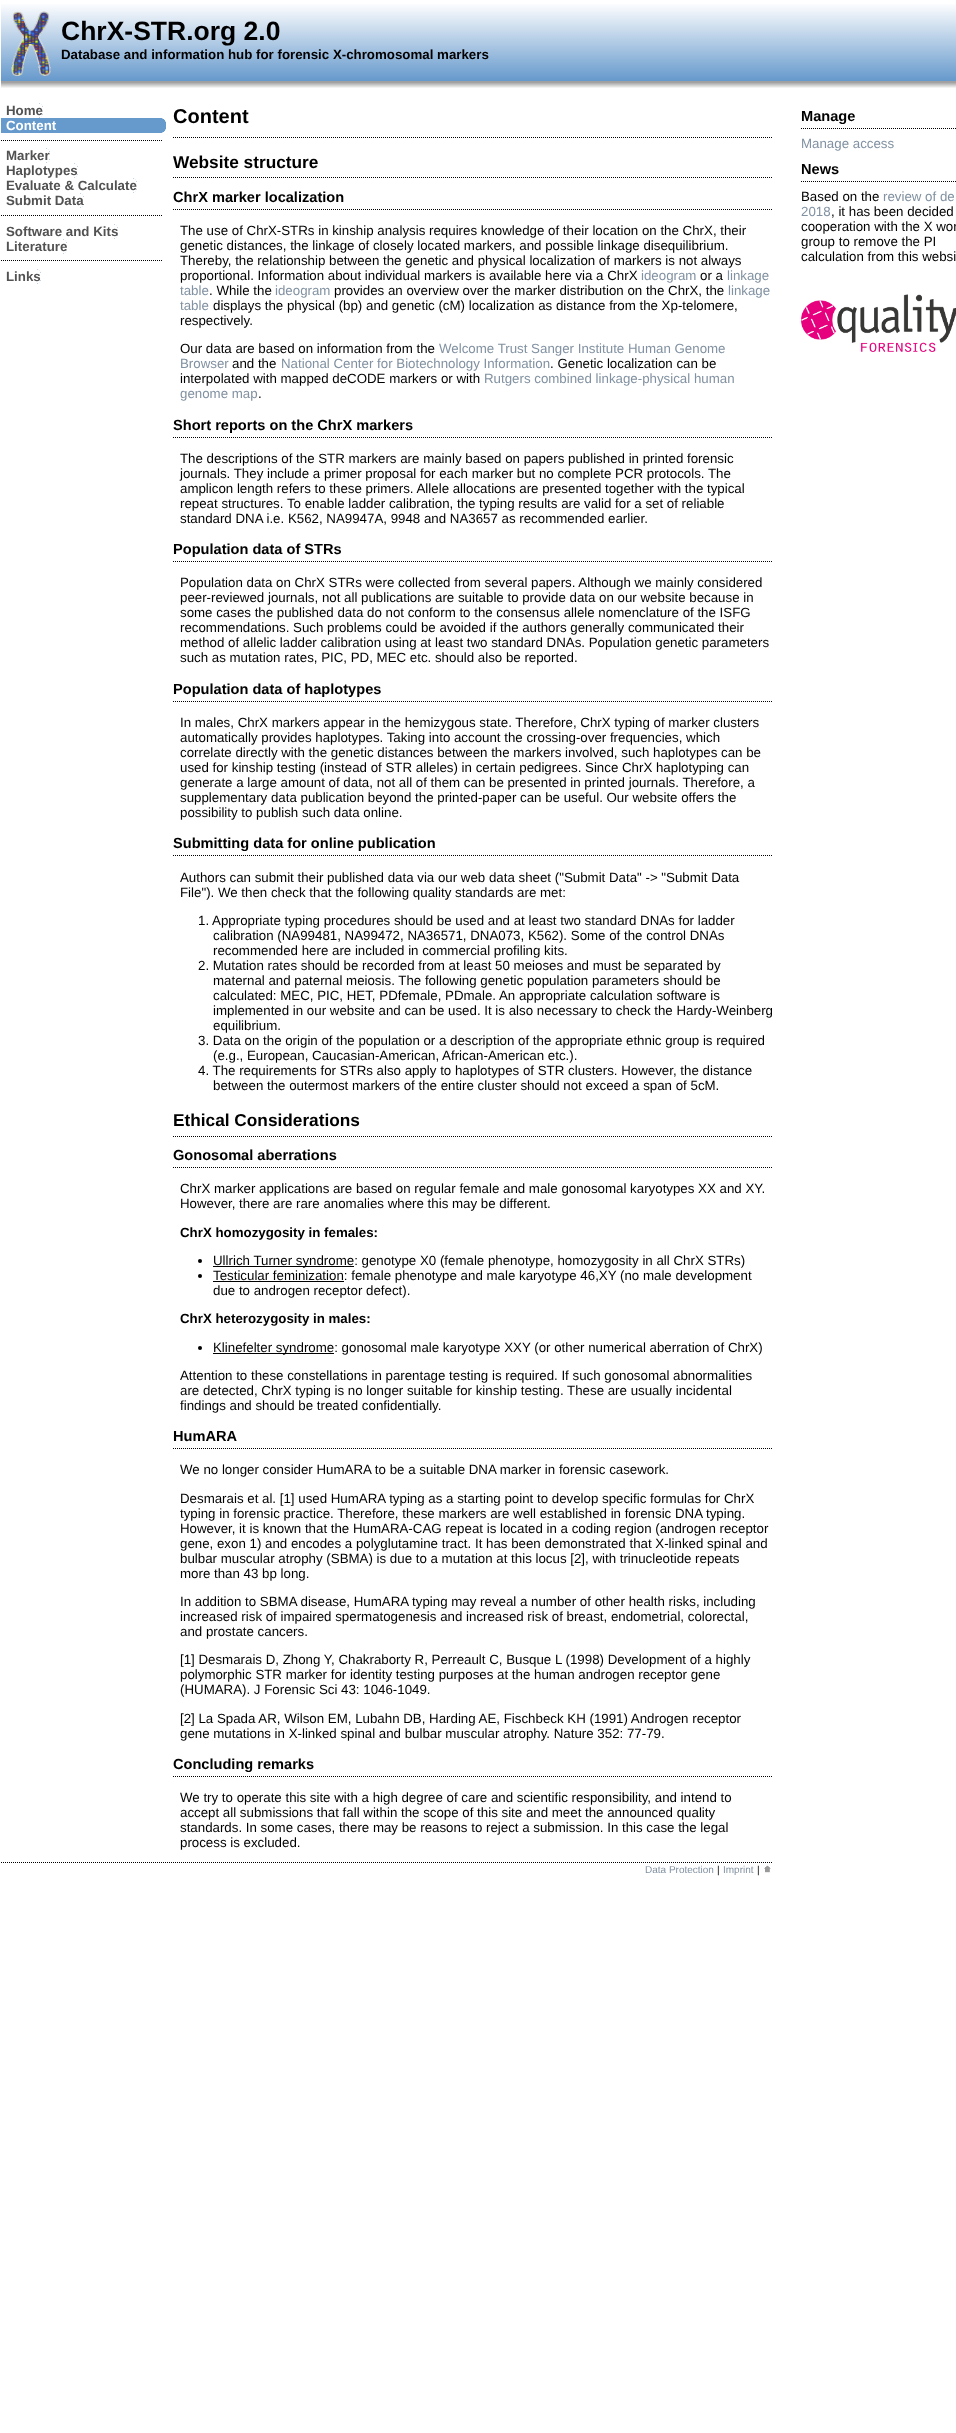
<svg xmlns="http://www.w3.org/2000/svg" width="956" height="2433">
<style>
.a{font:bold 26.5px Liberation Sans;fill:#000}
.b{font:bold 13.3px Liberation Sans;fill:#000}
.c{font:bold 13.3px Liberation Sans;fill:#525252}
.d{font:bold 13.3px Liberation Sans;fill:#fff}
.e{font:bold 20px Liberation Sans;fill:#000}
.f{font:bold 17.25px Liberation Sans;fill:#000}
.g{font:bold 14.6px Liberation Sans;fill:#000}
.h{font:13.3px Liberation Sans;fill:#000}
.i{font:13.3px Liberation Sans;fill:#8191a1}
.j{font:10px Liberation Sans;fill:#8191a1}
.k{font:10px Liberation Sans;fill:#000}
</style>
<rect width="100%" height="100%" fill="#fff"/>
<image href="1.png" x="1" y="4" width="955" height="84"/>
<image href="2.png" x="11" y="11" width="40" height="65"/>
<image href="3.png" x="39" y="103" width="4" height="15"/>
<path fill="#69c" d="M1 118h165v15H1z"/>
<image href="4.png" x="162" y="118" width="4" height="15"/>
<path fill="none" stroke="#000" stroke-dasharray="1 1" d="M1 140.5h162"/>
<image href="3.png" x="46" y="148" width="4" height="15"/>
<image href="3.png" x="74" y="163" width="4" height="15"/>
<image href="3.png" x="133" y="178" width="4" height="15"/>
<image href="3.png" x="80" y="193" width="4" height="15"/>
<path fill="none" stroke="#000" stroke-dasharray="1 1" d="M1 215.5h162"/>
<image href="3.png" x="114" y="224" width="4" height="15"/>
<image href="3.png" x="63" y="239" width="4" height="15"/>
<path fill="none" stroke="#000" stroke-dasharray="1 1" d="M1 260.5h162"/>
<image href="3.png" x="37" y="269" width="4" height="15"/>
<path fill="none" stroke="#000" stroke-dasharray="1 1" d="M173 137.5h600"/>
<path fill="none" stroke="#000" stroke-dasharray="1 1" d="M173 177.5h600"/>
<path fill="none" stroke="#000" stroke-dasharray="1 1" d="M173 209.5h600"/>
<path fill="none" stroke="#000" stroke-dasharray="1 1" d="M173 437.5h600"/>
<path fill="none" stroke="#000" stroke-dasharray="1 1" d="M173 561.5h600"/>
<path fill="none" stroke="#000" stroke-dasharray="1 1" d="M173 701.5h600"/>
<path fill="none" stroke="#000" stroke-dasharray="1 1" d="M173 855.5h600"/>
<path fill="none" stroke="#000" stroke-dasharray="1 1" d="M173 1136.5h600"/>
<path fill="none" stroke="#000" stroke-dasharray="1 1" d="M173 1167.5h600"/>
<circle fill="#000" cx="200" cy="1261" r="2"/>
<path fill="#000" d="M213 1266h141v1H213z"/>
<circle fill="#000" cx="200" cy="1276" r="2"/>
<path fill="#000" d="M213 1281h131v1H213z"/>
<circle fill="#000" cx="200" cy="1348" r="2"/>
<path fill="#000" d="M213 1353h121v1H213z"/>
<path fill="none" stroke="#000" stroke-dasharray="1 1" d="M173 1448.5h600"/>
<path fill="none" stroke="#000" stroke-dasharray="1 1" d="M173 1776.5h600"/>
<path fill="none" stroke="#000" stroke-dasharray="1 1" d="M801 128.5h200"/>
<path fill="none" stroke="#000" stroke-dasharray="1 1" d="M801 181.5h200"/>
<image href="5.png" x="801" y="294" width="155" height="58"/>
<path fill="none" stroke="#000" stroke-dasharray="1 1" d="M1 1862.5h772"/>
<image href="6.png" x="764" y="1865" width="7" height="8"/>
<text class="a" x="61" y="40">ChrX-STR.org 2.0</text>
<text class="b" x="61" y="59">Database and information hub for forensic X-chromosomal markers</text>
<text class="c" x="6" y="115">Home</text>
<text class="d" x="6" y="130">Content</text>
<text class="c" x="6" y="160">Marker</text>
<text class="c" x="6" y="175">Haplotypes</text>
<text class="c" x="6" y="190">Evaluate &amp; Calculate</text>
<text class="c" x="6" y="205">Submit Data</text>
<text class="c" x="6" y="236">Software and Kits</text>
<text class="c" x="6" y="251">Literature</text>
<text class="c" x="6" y="281">Links</text>
<text class="e" x="173" y="123">Content</text>
<text class="f" x="173" y="168">Website structure</text>
<text class="g" x="173" y="202">ChrX marker localization</text>
<text class="h" x="180" y="235">The use of ChrX-STRs in kinship analysis requires knowledge of their location on the ChrX, their</text>
<text class="h" x="180" y="250">genetic distances, the linkage of closely located markers, and possible linkage disequilibrium.</text>
<text class="h" x="180" y="265">Thereby, the relationship between the genetic and physical localization of markers is not always</text>
<text class="h" x="180" y="280">proportional. Information about individual markers is available here via a ChrX</text>
<text class="i" x="641" y="280">ideogram</text>
<text class="h" x="700" y="280">or a</text>
<text class="i" x="727" y="280">linkage</text>
<text class="i" x="180" y="295">table</text>
<text class="h" x="209" y="295">. While the</text>
<text class="i" x="275" y="295">ideogram</text>
<text class="h" x="334" y="295">provides an overview over the marker distribution on the ChrX, the</text>
<text class="i" x="728" y="295">linkage</text>
<text class="i" x="180" y="310">table</text>
<text class="h" x="213" y="310">displays the physical (bp) and genetic (cM) localization as distance from the Xp-telomere,</text>
<text class="h" x="180" y="325">respectively.</text>
<text class="h" x="180" y="353">Our data are based on information from the</text>
<text class="i" x="439" y="353">Welcome Trust Sanger Institute Human Genome</text>
<text class="i" x="180" y="368">Browser</text>
<text class="h" x="232" y="368">and the</text>
<text class="i" x="281" y="368">National Center for Biotechnology Information</text>
<text class="h" x="550" y="368">. Genetic localization can be</text>
<text class="h" x="180" y="383">interpolated with mapped deCODE markers or with</text>
<text class="i" x="484" y="383">Rutgers combined linkage-physical human</text>
<text class="i" x="180" y="398">genome map</text>
<text class="h" x="258" y="398">.</text>
<text class="g" x="173" y="430">Short reports on the ChrX markers</text>
<text class="h" x="180" y="463">The descriptions of the STR markers are mainly based on papers published in printed forensic</text>
<text class="h" x="180" y="478">journals. They include a primer proposal for each marker but no complete PCR protocols. The</text>
<text class="h" x="180" y="493">amplicon length refers to these primers. Allele allocations are presented together with the typical</text>
<text class="h" x="180" y="508">repeat structures. To enable ladder calibration, the typing results are valid for a set of reliable</text>
<text class="h" x="180" y="523">standard DNA i.e. K562, NA9947A, 9948 and NA3657 as recommended earlier.</text>
<text class="g" x="173" y="554">Population data of STRs</text>
<text class="h" x="180" y="587">Population data on ChrX STRs were collected from several papers. Although we mainly considered</text>
<text class="h" x="180" y="602">peer-reviewed journals, not all publications are suitable to provide data on our website because in</text>
<text class="h" x="180" y="617">some cases the published data do not conform to the consensus allele nomenclature of the ISFG</text>
<text class="h" x="180" y="632">recommendations. Such problems could be avoided if the authors generally communicated their</text>
<text class="h" x="180" y="647">method of allelic ladder calibration using at least two standard DNAs. Population genetic parameters</text>
<text class="h" x="180" y="662">such as mutation rates, PIC, PD, MEC etc. should also be reported.</text>
<text class="g" x="173" y="694">Population data of haplotypes</text>
<text class="h" x="180" y="727">In males, ChrX markers appear in the hemizygous state. Therefore, ChrX typing of marker clusters</text>
<text class="h" x="180" y="742">automatically provides haplotypes. Taking into account the crossing-over frequencies, which</text>
<text class="h" x="180" y="757">correlate directly with the genetic distances between the markers involved, such haplotypes can be</text>
<text class="h" x="180" y="772">used for kinship testing (instead of STR alleles) in certain pedigrees. Since ChrX haplotyping can</text>
<text class="h" x="180" y="787">generate a large amount of data, not all of them can be presented in printed journals. Therefore, a</text>
<text class="h" x="180" y="802">supplementary data publication beyond the printed-paper can be useful. Our website offers the</text>
<text class="h" x="180" y="817">possibility to publish such data online.</text>
<text class="g" x="173" y="848">Submitting data for online publication</text>
<text class="h" x="180" y="882">Authors can submit their published data via our web data sheet ("Submit Data" -&gt; "Submit Data</text>
<text class="h" x="180" y="897">File"). We then check that the following quality standards are met:</text>
<text class="h" x="198" y="925">1. Appropriate typing procedures should be used and at least two standard DNAs for ladder</text>
<text class="h" x="213" y="940">calibration (NA99481, NA99472, NA36571, DNA073, K562). Some of the control DNAs</text>
<text class="h" x="213" y="955">recommended here are included in commercial profiling kits.</text>
<text class="h" x="198" y="970">2. Mutation rates should be recorded from at least 50 meioses and must be separated by</text>
<text class="h" x="213" y="985">maternal and paternal meiosis. The following genetic population parameters should be</text>
<text class="h" x="213" y="1000">calculated: MEC, PIC, HET, PDfemale, PDmale. An appropriate calculation software is</text>
<text class="h" x="213" y="1015">implemented in our website and can be used. It is also necessary to check the Hardy-Weinberg</text>
<text class="h" x="213" y="1030">equilibrium.</text>
<text class="h" x="198" y="1045">3. Data on the origin of the population or a description of the appropriate ethnic group is required</text>
<text class="h" x="213" y="1060">(e.g., European, Caucasian-American, African-American etc.).</text>
<text class="h" x="198" y="1075">4. The requirements for STRs also apply to haplotypes of STR clusters. However, the distance</text>
<text class="h" x="213" y="1090">between the outermost markers of the entire cluster should not exceed a span of 5cM.</text>
<text class="f" x="173" y="1126">Ethical Considerations</text>
<text class="g" x="173" y="1160">Gonosomal aberrations</text>
<text class="h" x="180" y="1193">ChrX marker applications are based on regular female and male gonosomal karyotypes XX and XY.</text>
<text class="h" x="180" y="1208">However, there are rare anomalies where this may be different.</text>
<text class="b" x="180" y="1237">ChrX homozygosity in females:</text>
<text class="h" x="213" y="1265">Ullrich Turner syndrome: genotype X0 (female phenotype, homozygosity in all ChrX STRs)</text>
<text class="h" x="213" y="1280">Testicular feminization: female phenotype and male karyotype 46,XY (no male development</text>
<text class="h" x="213" y="1295">due to androgen receptor defect).</text>
<text class="b" x="180" y="1323">ChrX heterozygosity in males:</text>
<text class="h" x="213" y="1352">Klinefelter syndrome: gonosomal male karyotype XXY (or other numerical aberration of ChrX)</text>
<text class="h" x="180" y="1380">Attention to these constellations in parentage testing is required. If such gonosomal abnormalities</text>
<text class="h" x="180" y="1395">are detected, ChrX typing is no longer suitable for kinship testing. These are usually incidental</text>
<text class="h" x="180" y="1410">findings and should be treated confidentially.</text>
<text class="g" x="173" y="1441">HumARA</text>
<text class="h" x="180" y="1474">We no longer consider HumARA to be a suitable DNA marker in forensic casework.</text>
<text class="h" x="180" y="1503">Desmarais et al. [1] used HumARA typing as a starting point to develop specific formulas for ChrX</text>
<text class="h" x="180" y="1518">typing in forensic practice. Therefore, these markers are well established in forensic DNA typing.</text>
<text class="h" x="180" y="1533">However, it is known that the HumARA-CAG repeat is located in a coding region (androgen receptor</text>
<text class="h" x="180" y="1548">gene, exon 1) and encodes a polyglutamine tract. It has been demonstrated that X-linked spinal and</text>
<text class="h" x="180" y="1563">bulbar muscular atrophy (SBMA) is due to a mutation at this locus [2], with trinucleotide repeats</text>
<text class="h" x="180" y="1578">more than 43 bp long.</text>
<text class="h" x="180" y="1606">In addition to SBMA disease, HumARA typing may reveal a number of other health risks, including</text>
<text class="h" x="180" y="1621">increased risk of impaired spermatogenesis and increased risk of breast, endometrial, colorectal,</text>
<text class="h" x="180" y="1636">and prostate cancers.</text>
<text class="h" x="180" y="1664">[1] Desmarais D, Zhong Y, Chakraborty R, Perreault C, Busque L (1998) Development of a highly</text>
<text class="h" x="180" y="1679">polymorphic STR marker for identity testing purposes at the human androgen receptor gene</text>
<text class="h" x="180" y="1694">(HUMARA). J Forensic Sci 43: 1046-1049.</text>
<text class="h" x="180" y="1723">[2] La Spada AR, Wilson EM, Lubahn DB, Harding AE, Fischbeck KH (1991) Androgen receptor</text>
<text class="h" x="180" y="1738">gene mutations in X-linked spinal and bulbar muscular atrophy. Nature 352: 77-79.</text>
<text class="g" x="173" y="1769">Concluding remarks</text>
<text class="h" x="180" y="1802">We try to operate this site with a high degree of care and scientific responsibility, and intend to</text>
<text class="h" x="180" y="1817">accept all submissions that fall within the scope of this site and meet the announced quality</text>
<text class="h" x="180" y="1832">standards. In some cases, there may be reasons to reject a submission. In this case the legal</text>
<text class="h" x="180" y="1847">process is excluded.</text>
<text class="g" x="801" y="121">Manage</text>
<text class="i" x="801" y="148">Manage access</text>
<text class="g" x="801" y="174">News</text>
<text class="h" x="801" y="201">Based on the</text>
<text class="i" x="883" y="201">review of de</text>
<text class="i" x="801" y="216">2018</text>
<text class="h" x="831" y="216">, it has been decided</text>
<text class="h" x="801" y="231">cooperation with the X wor</text>
<text class="h" x="801" y="246">group to remove the PI</text>
<text class="h" x="801" y="261">calculation from this websi</text>
<text class="j" x="645" y="1873">Data Protection</text>
<text class="k" x="717" y="1873">|</text>
<text class="j" x="723" y="1873">Imprint</text>
<text class="k" x="757" y="1873">|</text>
</svg>
